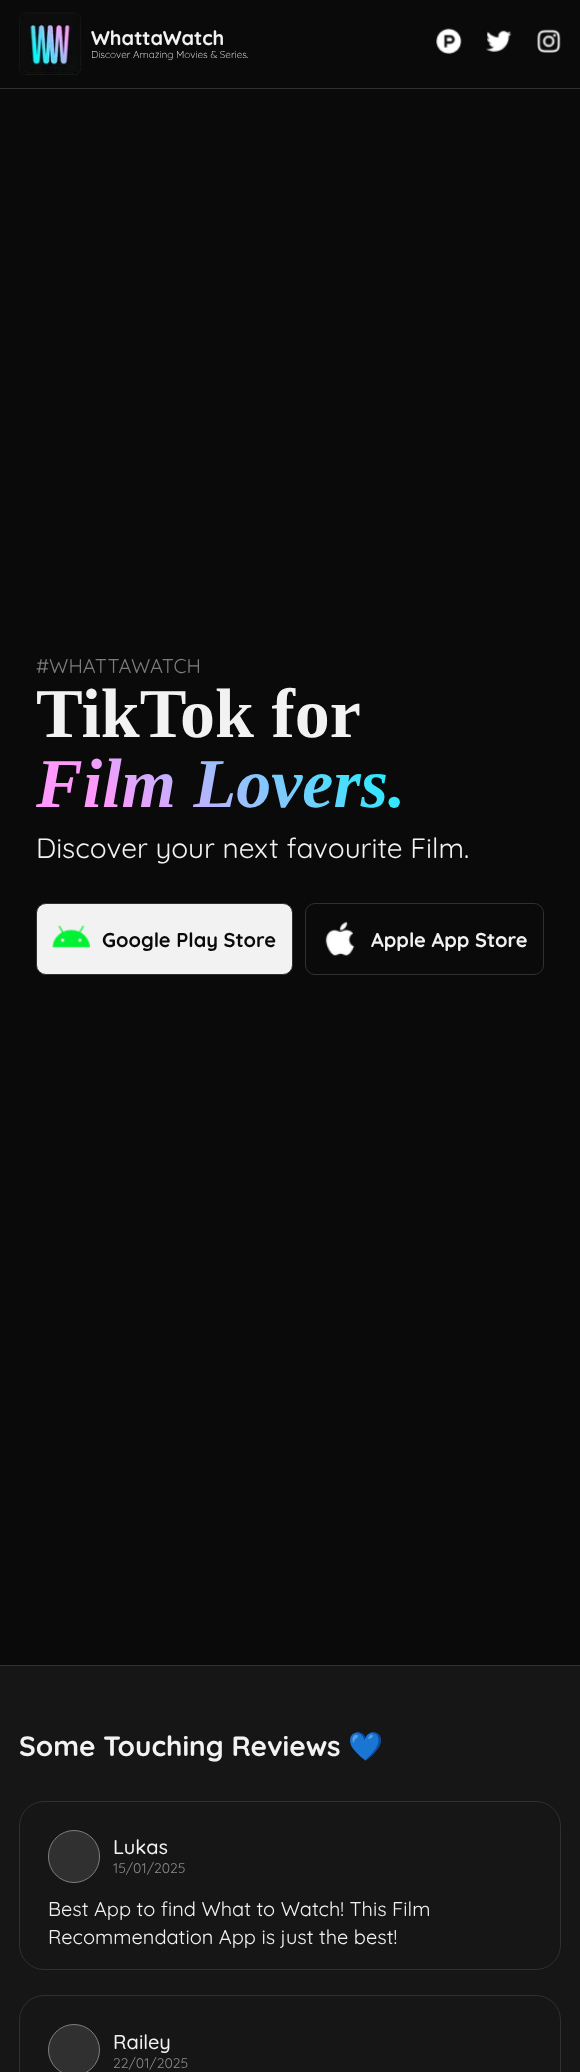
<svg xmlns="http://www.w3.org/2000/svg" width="580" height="2072">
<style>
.a{font:bold 20px Quicksand;fill:#f2f2f2}
.b{font:300 10px Quicksand;fill:#f2f2f2}
.c{font:20px Quicksand;fill:#7d7d7d}
.d{font:bold 70px Liberation Serif;fill:#f2f2f2}
.e{font:italic bold 70px Liberation Serif;fill:url(#g1)}
.f{font:28px Quicksand;fill:#f2f2f2}
.g{font:bold 20px Quicksand;fill:#0a0a0a}
.h{font:bold 28px Quicksand;fill:#f2f2f2}
.i{font:bold 28px Noto Color Emoji;fill:#f2f2f2}
.j{font:500 20px Quicksand;fill:#f2f2f2}
.k{font:14px Quicksand;fill:#8b8b8b}
.l{font:20px Quicksand;fill:#f2f2f2}
</style>
<defs>
<linearGradient id="g1" gradientUnits="userSpaceOnUse" x1="93" y1="890" x2="348" y2="676"><stop offset="0.2" stop-color="#ff99fb"/><stop offset="1" stop-color="#08f7ff"/></linearGradient>
</defs>
<rect width="100%" height="100%" fill="#0a0a0a"/>
<path fill="#303030" d="M0 88h580v1H0z"/>
<image href="1.png" x="19" y="12" width="63" height="63"/>
<image href="2.png" x="436" y="28" width="26" height="26"/>
<image href="3.png" x="486" y="30" width="26" height="22"/>
<image href="4.png" x="537" y="29" width="24" height="24"/>
<rect fill="#f2f2f2" stroke="#303030" x="36.5" y="903.5" width="256" height="71" rx="9.5"/>
<image href="5.png" x="52" y="925" width="38" height="24"/>
<rect fill="none" stroke="#303030" x="305.5" y="903.5" width="238" height="71" rx="9.5"/>
<image href="6.png" x="325" y="921" width="30" height="36"/>
<path fill="#161616" d="M0 1666h580v406H0z"/>
<path fill="#303030" d="M0 1665h580v1H0z"/>
<rect fill="none" stroke="#303030" x="19.5" y="1801.5" width="541" height="168" rx="24.5"/>
<rect fill="#303030" stroke="#7d7d7d" x="48.5" y="1830.5" width="51" height="52" rx="25.5"/>
<rect fill="none" stroke="#303030" x="19.5" y="1995.5" width="541" height="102" rx="24.5"/>
<circle fill="#303030" stroke="#7d7d7d" cx="74" cy="2050" r="25.5"/>
<text class="a" x="91" y="45">WhattaWatch</text>
<text class="b" x="91" y="58">Discover Amazing Movies &amp; Series.</text>
<text class="c" x="36" y="673">#WHATTAWATCH</text>
<text class="d" x="36" y="737">TikTok for</text>
<text class="e" x="36" y="807">Film Lovers.</text>
<text class="f" x="36" y="858">Discover your next favourite Film.</text>
<text class="g" x="102" y="947">Google Play Store</text>
<text class="a" x="371" y="947">Apple App Store</text>
<text class="h" x="19" y="1756">Some Touching Reviews</text>
<text class="i" x="348" y="1756">💙</text>
<text class="j" x="113" y="1854">Lukas</text>
<text class="k" x="113" y="1873">15/01/2025</text>
<text class="l" x="48" y="1916">Best App to find What to Watch! This Film</text>
<text class="l" x="48" y="1944">Recommendation App is just the best!</text>
<text class="j" x="113" y="2049">Railey</text>
<text class="k" x="113" y="2068">22/01/2025</text>
</svg>
